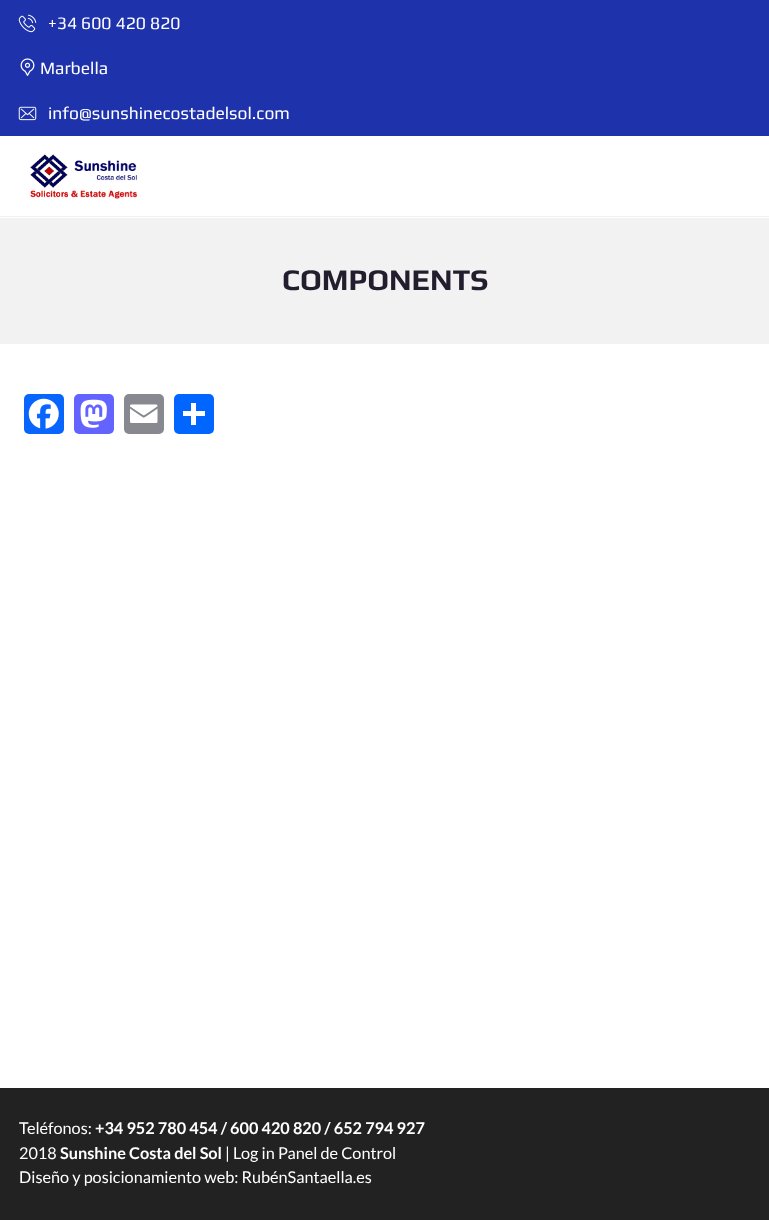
<svg xmlns="http://www.w3.org/2000/svg" width="769" height="1220">
<style>
.a{font:17.5px Play;fill:#fff}
.b{font:bold 30px Play;fill:#231e2e}
.c{font:16.25px Lato;fill:#fff}
.d{font:bold 16.25px Lato;fill:#fff}
</style>
<rect width="100%" height="100%" fill="#fff"/>
<path fill="#1e32ab" d="M0 0h769v136H0z"/>
<image href="1.png" x="18" y="14" width="19" height="19"/>
<image href="2.png" x="20" y="58" width="15" height="18"/>
<image href="3.png" x="18" y="106" width="19" height="15"/>
<image href="4.png" x="30" y="154" width="108" height="45"/>
<path fill="#f0f0f0" d="M0 216h769v1H0z"/>
<path fill="#f2f2f2" d="M0 218h769v126H0z"/>
<rect fill="#0866ff" x="24" y="394" width="40" height="40" rx="5"/>
<image href="5.png" x="28" y="398" width="31" height="31"/>
<rect fill="#6364ff" x="74" y="394" width="40" height="40" rx="5"/>
<image href="6.png" x="80" y="399" width="27" height="29"/>
<rect fill="#888990" x="124" y="394" width="40" height="40" rx="5"/>
<image href="7.png" x="130" y="404" width="28" height="19"/>
<rect fill="#0166ff" x="174" y="394" width="40" height="40" rx="5"/>
<path fill="#fff" d="M191 403h5v22H191z"/>
<path fill="#fff" d="M183 411h22v5H183z"/>
<path fill="#222" d="M0 1088h769v132H0z"/>
<text class="a" x="48" y="29">+34 600 420 820</text>
<text class="a" x="40" y="74">Marbella</text>
<text class="a" x="48" y="119">info@sunshinecostadelsol.com</text>
<text class="b" x="282" y="290">COMPONENTS</text>
<text class="c" x="19" y="1134">Teléfonos:</text>
<text class="d" x="95" y="1134">+34 952 780 454 / 600 420 820 / 652 794 927</text>
<text class="c" x="19" y="1159">2018</text>
<text class="d" x="60" y="1159">Sunshine Costa del Sol</text>
<text class="c" x="225" y="1159">| Log in Panel de Control</text>
<text class="c" x="19" y="1183">Diseño y posicionamiento web: RubénSantaella.es</text>
</svg>
